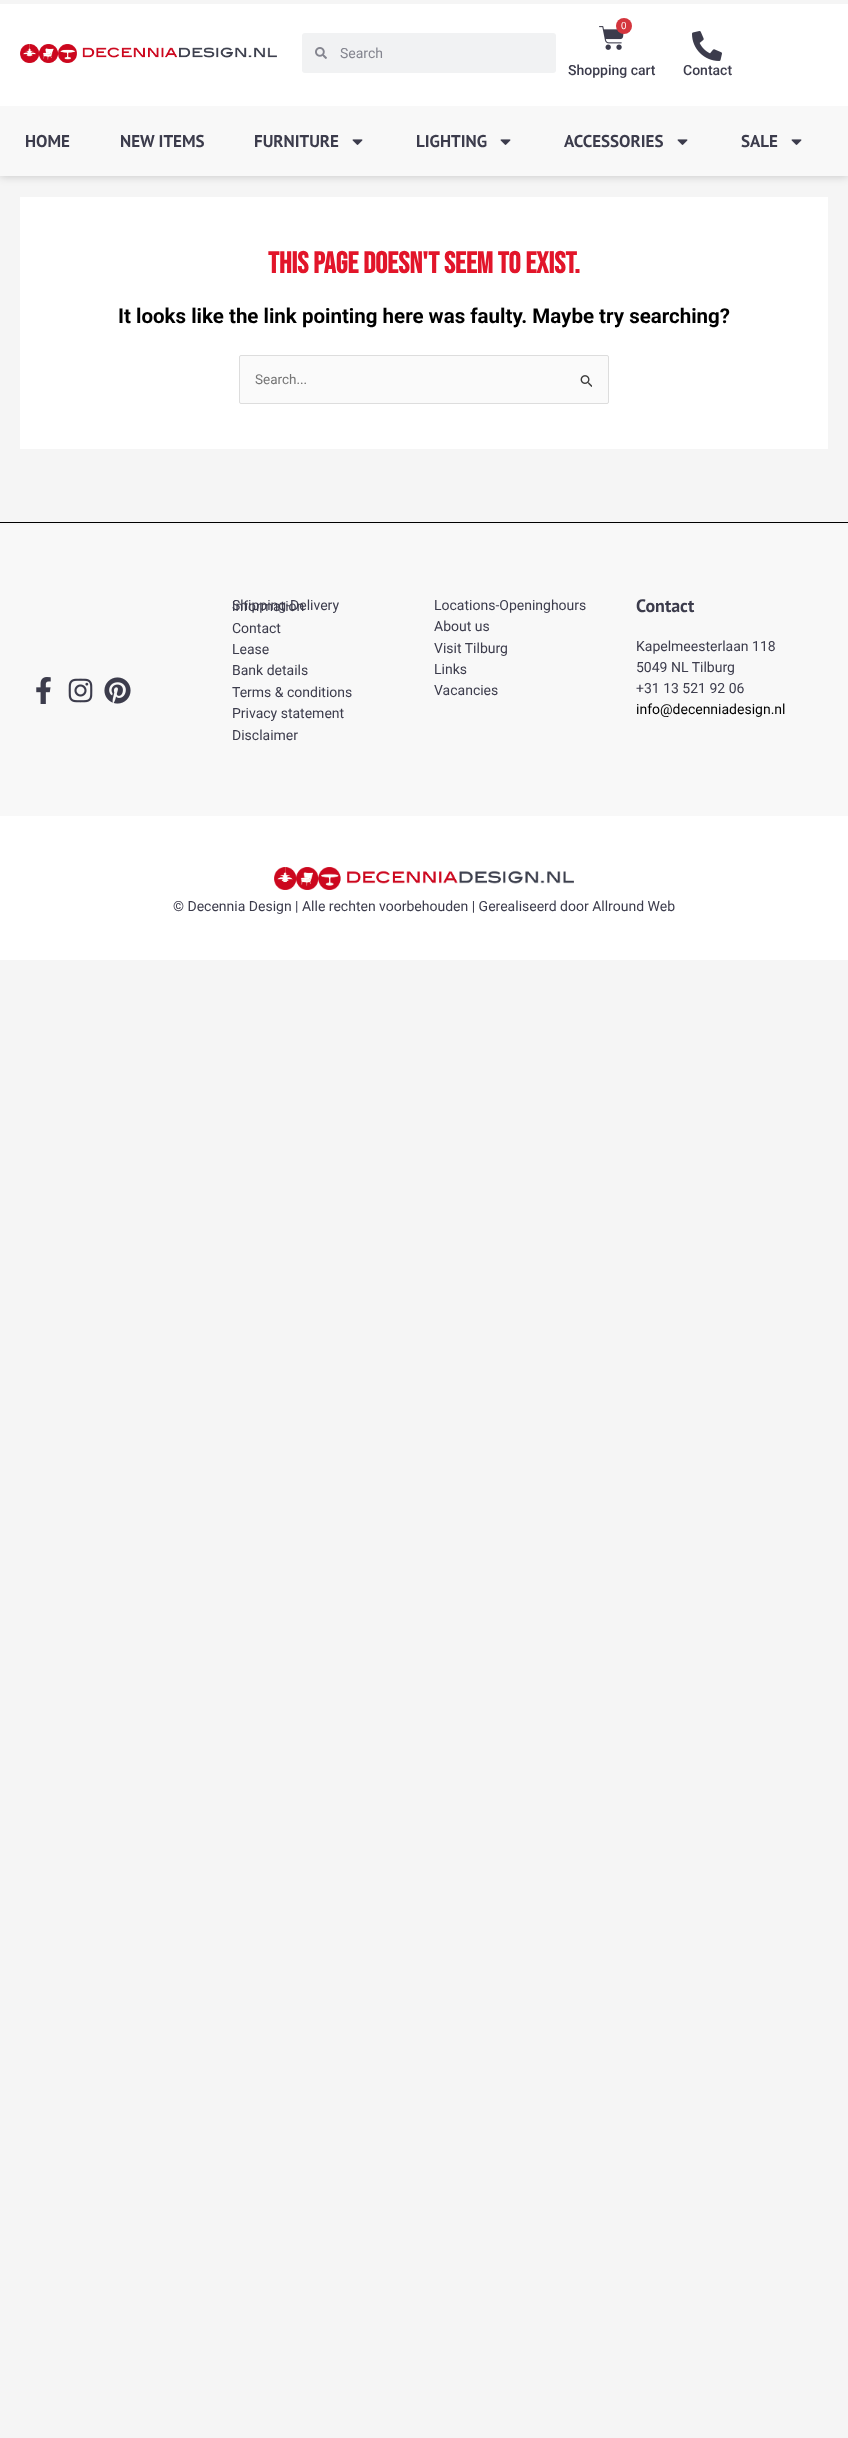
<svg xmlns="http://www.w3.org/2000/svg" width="848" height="2438">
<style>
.a{font:14px Roboto;fill:#84858f}
.b{font:10px PT Sans;fill:#fff}
.c{font:500 14px Roboto;fill:#3c3c4c}
.d{font:bold 17px PT Sans;fill:#3c3c4c}
.e{font:bold 30px Bebas Neue;fill:#e2152a}
.f{font:bold 20.5px Roboto;fill:#000}
.g{font:13.5px Roboto;fill:#757575}
.h{font:14px Roboto;fill:#3c3c4c}
.i{font:bold 18px PT Sans;fill:#3c3c4c}
.j{font:14px Roboto;fill:#000}
</style>
<rect width="100%" height="100%" fill="#f5f5f5"/>
<path fill="#00000033" filter="blur(5px)" d="M0 106h848v70H0z"/>
<path fill="#fff" d="M0 4h848v102H0z"/>
<image href="1.png" x="20" y="44" width="257" height="19"/>
<rect fill="#f1f2f3" x="302" y="33" width="254" height="40" rx="3"/>
<image href="2.png" x="315" y="47" width="12" height="12"/>
<image href="3.png" x="599" y="26" width="25" height="24"/>
<circle fill="#d4353d" cx="624" cy="26" r="8"/>
<image href="4.png" x="692" y="31" width="30" height="30"/>
<path fill="#f8f8f8" d="M0 106h848v70H0z"/>
<image href="5.png" x="352" y="139" width="11" height="6"/>
<image href="5.png" x="500" y="139" width="11" height="6"/>
<image href="5.png" x="677" y="139" width="11" height="6"/>
<image href="5.png" x="791" y="139" width="11" height="6"/>
<path fill="#fff" d="M20 197h808v252H20z"/>
<rect fill="#fafafa" stroke="#ddd" x="239.5" y="355.5" width="369" height="48" rx="1.5"/>
<image href="6.png" x="580" y="375" width="12" height="12"/>
<path fill="#000" d="M0 522h848v1H0z"/>
<path fill="#f8f8f8" d="M0 525h848v291H0z"/>
<image href="7.png" x="36" y="677" width="15" height="27"/>
<image href="8.png" x="68" y="678" width="25" height="25"/>
<image href="9.png" x="104" y="677" width="27" height="27"/>
<path fill="#fff" d="M0 816h848v144H0z"/>
<image href="10.png" x="274" y="867" width="300" height="23"/>
<text class="a" x="340" y="58">Search</text>
<text class="b" x="621" y="29">0</text>
<text class="c" x="568" y="75">Shopping cart</text>
<text class="c" x="683" y="75">Contact</text>
<text class="d" x="25" y="147">HOME</text>
<text class="d" x="120" y="147">NEW ITEMS</text>
<text class="d" x="254" y="147">FURNITURE</text>
<text class="d" x="416" y="147">LIGHTING</text>
<text class="d" x="564" y="147">ACCESSORIES</text>
<text class="d" x="741" y="147">SALE</text>
<text class="e" x="268" y="273">This page doesn't seem to exist.</text>
<text class="f" x="118" y="323">It looks like the link pointing here was faulty. Maybe try searching?</text>
<text class="g" x="255" y="384">Search...</text>
<text class="h" x="232" y="610">Shipping-Delivery</text>
<text class="h" x="232" y="611">information</text>
<text class="h" x="232" y="633">Contact</text>
<text class="h" x="232" y="654">Lease</text>
<text class="h" x="232" y="675">Bank details</text>
<text class="h" x="232" y="697">Terms &amp; conditions</text>
<text class="h" x="232" y="718">Privacy statement</text>
<text class="h" x="232" y="740">Disclaimer</text>
<text class="h" x="434" y="610">Locations-Openinghours</text>
<text class="h" x="434" y="631">About us</text>
<text class="h" x="434" y="653">Visit Tilburg</text>
<text class="h" x="434" y="674">Links</text>
<text class="h" x="434" y="695">Vacancies</text>
<text class="i" x="636" y="612">Contact</text>
<text class="h" x="636" y="651">Kapelmeesterlaan 118</text>
<text class="h" x="636" y="672">5049 NL Tilburg</text>
<text class="h" x="636" y="693">+31 13 521 92 06</text>
<text class="j" x="636" y="714">info@decenniadesign.nl</text>
<text class="h" x="173" y="911">© Decennia Design | Alle rechten voorbehouden | Gerealiseerd door Allround Web</text>
</svg>
